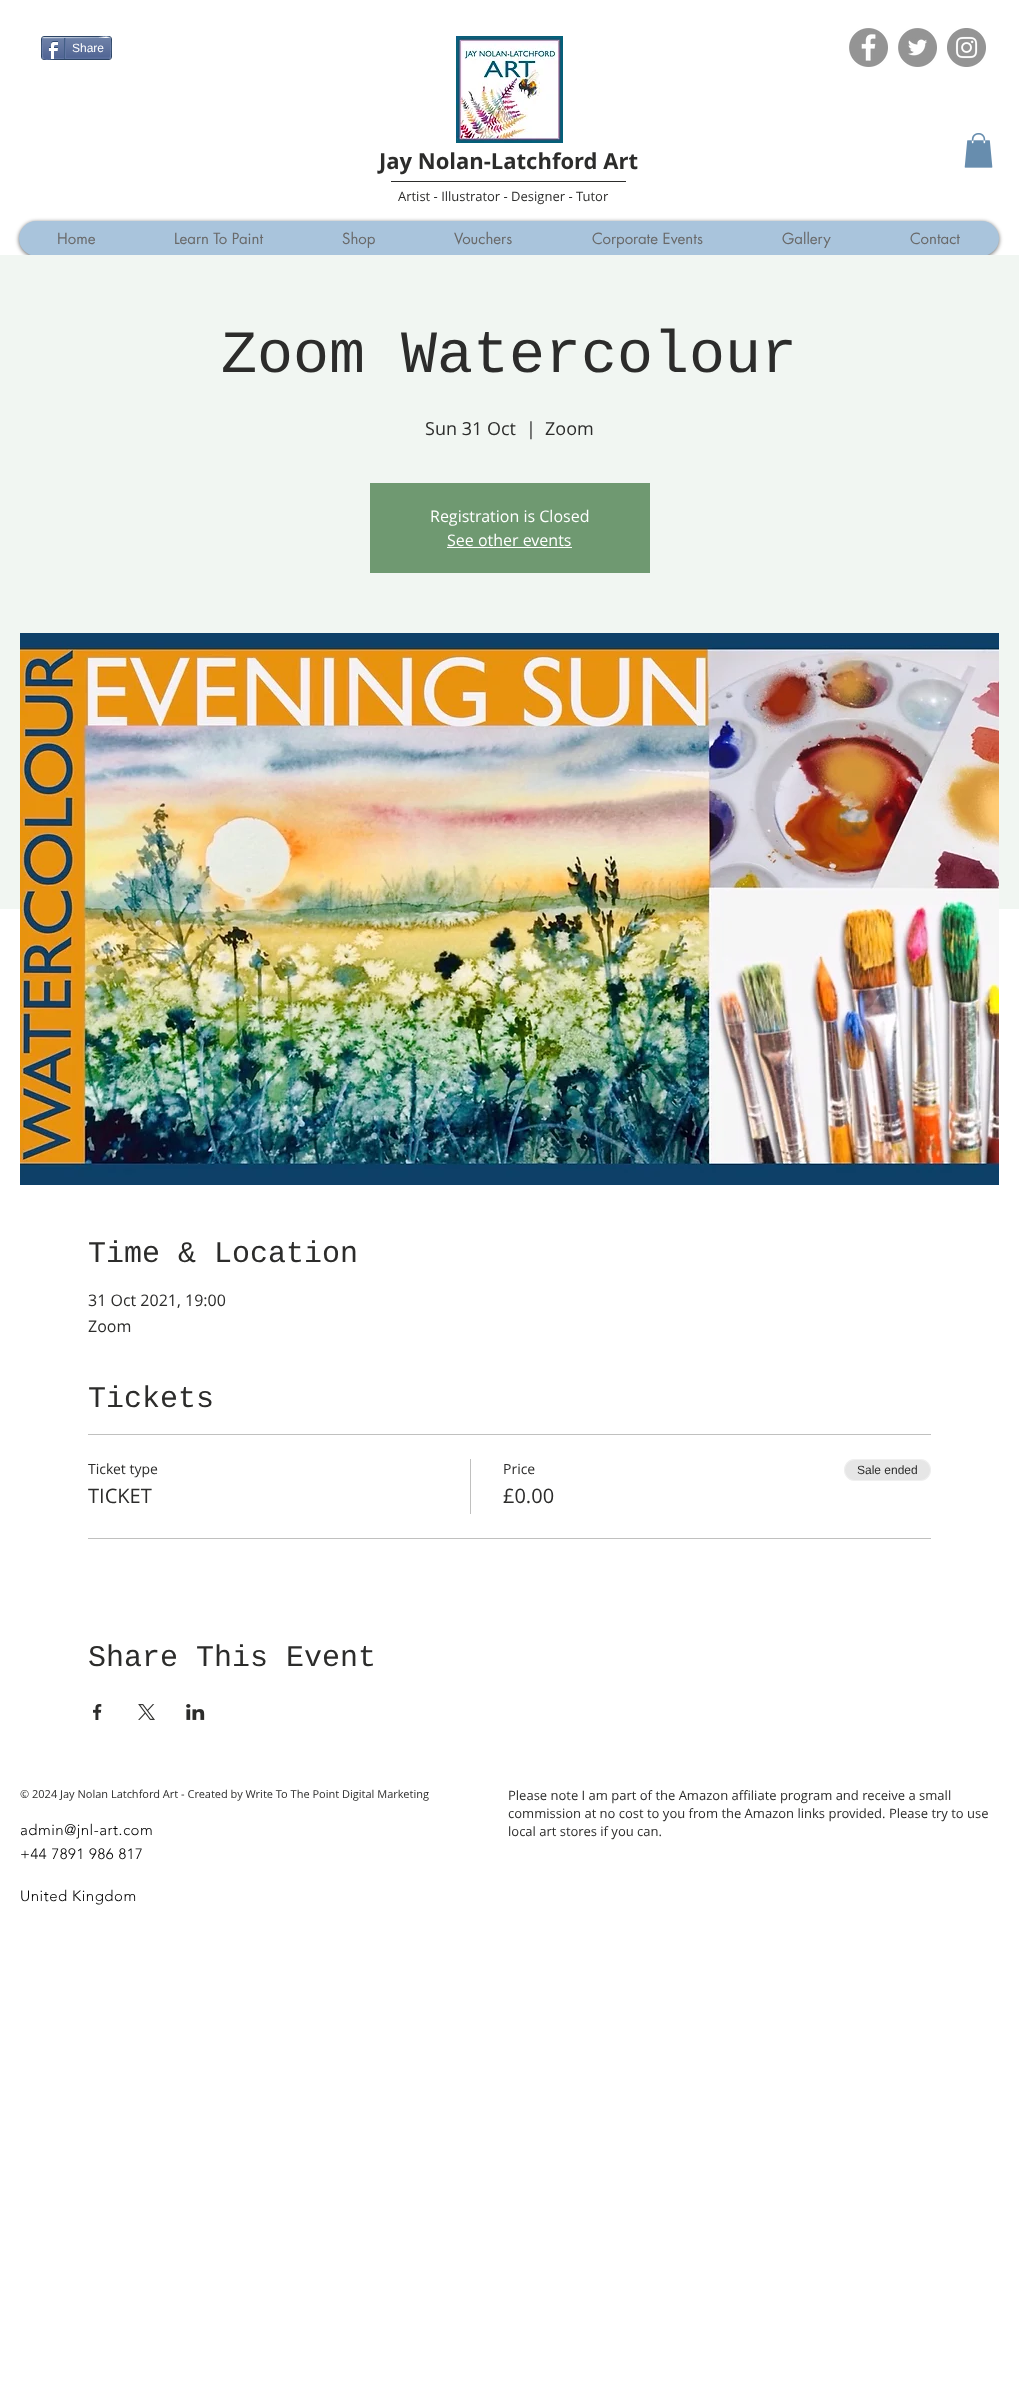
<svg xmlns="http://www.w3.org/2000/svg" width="1019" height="2387">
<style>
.a{font:12px Liberation Sans;fill:#fff}
.b{font:bold 22px Open Sans;fill:#2c2c2b}
.c{font:13px Open Sans;fill:#2c2c2b}
.d{font:15px futura;fill:#696969}
.e{font:60px Liberation Mono;fill:#2c2c2b}
.f{font:18px Open Sans;fill:#2c2c2b}
.g{font:16px Open Sans;fill:#fff}
.h{font:30px Liberation Mono;fill:#2c2c2b}
.i{font:16px Open Sans;fill:#2c2c2b}
.j{font:14px Open Sans;fill:#2c2c2b}
.k{font:20px Open Sans;fill:#2c2c2b}
.l{font:12px Liberation Sans;fill:#2c2c2b}
.m{font:11px Open Sans;fill:#2c2c2b}
.n{font:300 15px 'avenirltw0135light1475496';letter-spacing:0.5px;fill:#000}
</style>
<rect width="100%" height="100%" fill="#fff"/>
<rect fill="none" stroke="#2d4565" x="41.5" y="36.5" width="70" height="23" rx="2.5"/>
<image href="1.png" x="42" y="38" width="69" height="21"/>
<path fill="none" stroke="#9aabc6" d="M43 38l55-.5c4 0 9-2.5 12 .5"/>
<path fill="none" stroke="#6f83ad" d="M110 38c1 .5 1 19.5 0 20"/>
<path fill="none" stroke="#6176a3" d="M110 58l-55 .5c-4 0-9 2.5-12-.5"/>
<path fill="none" stroke="#6f83ad" d="M43 58c-1-.5-1-19.5 0-20"/>
<image href="2.png" x="48" y="41" width="10" height="18"/>
<path fill="#425e85" d="M64 38h1v21H64z"/>
<path fill="#6176a3" d="M65 38h1v20H65z"/>
<image href="3.png" x="456" y="36" width="107" height="107"/>
<image href="4.png" x="849" y="28" width="39" height="39"/>
<image href="5.png" x="898" y="28" width="39" height="39"/>
<image href="6.png" x="947" y="28" width="39" height="39"/>
<image href="7.png" x="964" y="133" width="29" height="35"/>
<path fill="#2c2c2b" d="M391 181h235v1H391z"/>
<rect fill="#00000099" filter="blur(2px)" x="19" y="222" width="980" height="35" rx="17.5"/>
<rect fill="#a9c4dc" x="19" y="221" width="980" height="35" rx="17.5"/>
<path fill="#f1f6f2" d="M0 255h1019v654H0z"/>
<path fill="#6f9971" d="M370 483h280v90H370z"/>
<path fill="#fff" d="M447 547h125v1H447z"/>
<image href="8.png" x="20" y="633" width="979" height="552"/>
<path fill="#c0c0bf" d="M88 1434h843v1H88z"/>
<path fill="#c0c0bf" d="M88 1538h843v1H88z"/>
<path fill="#c0c0bf" d="M470 1459h1v55H470z"/>
<rect fill="#e6e6e6" x="844" y="1459" width="87" height="22" rx="11"/>
<rect fill="none" stroke="#ffffff66" x="844.5" y="1459.5" width="86" height="21" rx="10.5"/>
<image href="9.png" x="93" y="1704" width="9" height="16"/>
<image href="10.png" x="138" y="1704" width="17" height="16"/>
<image href="11.png" x="186" y="1704" width="19" height="16"/>
<text class="a" x="72" y="52">Share</text>
<text class="b" x="379" y="169">Jay Nolan-Latchford Art</text>
<text class="c" x="398" y="201">Artist - Illustrator - Designer - Tutor</text>
<text class="d" x="57" y="244">Home</text>
<text class="d" x="174" y="244">Learn To Paint</text>
<text class="d" x="342" y="244">Shop</text>
<text class="d" x="454" y="244">Vouchers</text>
<text class="d" x="592" y="244">Corporate Events</text>
<text class="d" x="782" y="244">Gallery</text>
<text class="d" x="910" y="244">Contact</text>
<text class="e" x="221" y="372">Zoom Watercolour</text>
<text class="f" x="425" y="435">Sun 31 Oct</text>
<text class="f" x="526" y="435">|</text>
<text class="f" x="545" y="435">Zoom</text>
<text class="g" x="430" y="522">Registration is Closed</text>
<text class="g" x="447" y="546">See other events</text>
<text class="h" x="88" y="1262">Time &amp; Location</text>
<text class="i" x="88" y="1306">31 Oct 2021, 19:00</text>
<text class="i" x="88" y="1332">Zoom</text>
<text class="h" x="88" y="1407">Tickets</text>
<text class="j" x="88" y="1474">Ticket type</text>
<text class="k" x="88" y="1503">TICKET</text>
<text class="j" x="503" y="1474">Price</text>
<text class="k" x="503" y="1503">£0.00</text>
<text class="l" x="857" y="1474">Sale ended</text>
<text class="h" x="88" y="1666">Share This Event</text>
<text class="m" x="20" y="1798">© 2024 Jay Nolan Latchford Art - Created by Write To The Point Digital Marketing</text>
<text class="c" x="508" y="1800">Please note I am part of the Amazon affiliate program and receive a small</text>
<text class="c" x="508" y="1818">commission at no cost to you from the Amazon links provided. Please try to use</text>
<text class="c" x="508" y="1836">local art stores if you can.</text>
<text class="n" x="20" y="1835">admin@jnl-art.com</text>
<text class="n" x="20" y="1859">+44 7891 986 817</text>
<text class="n" x="20" y="1901">United Kingdom</text>
</svg>
